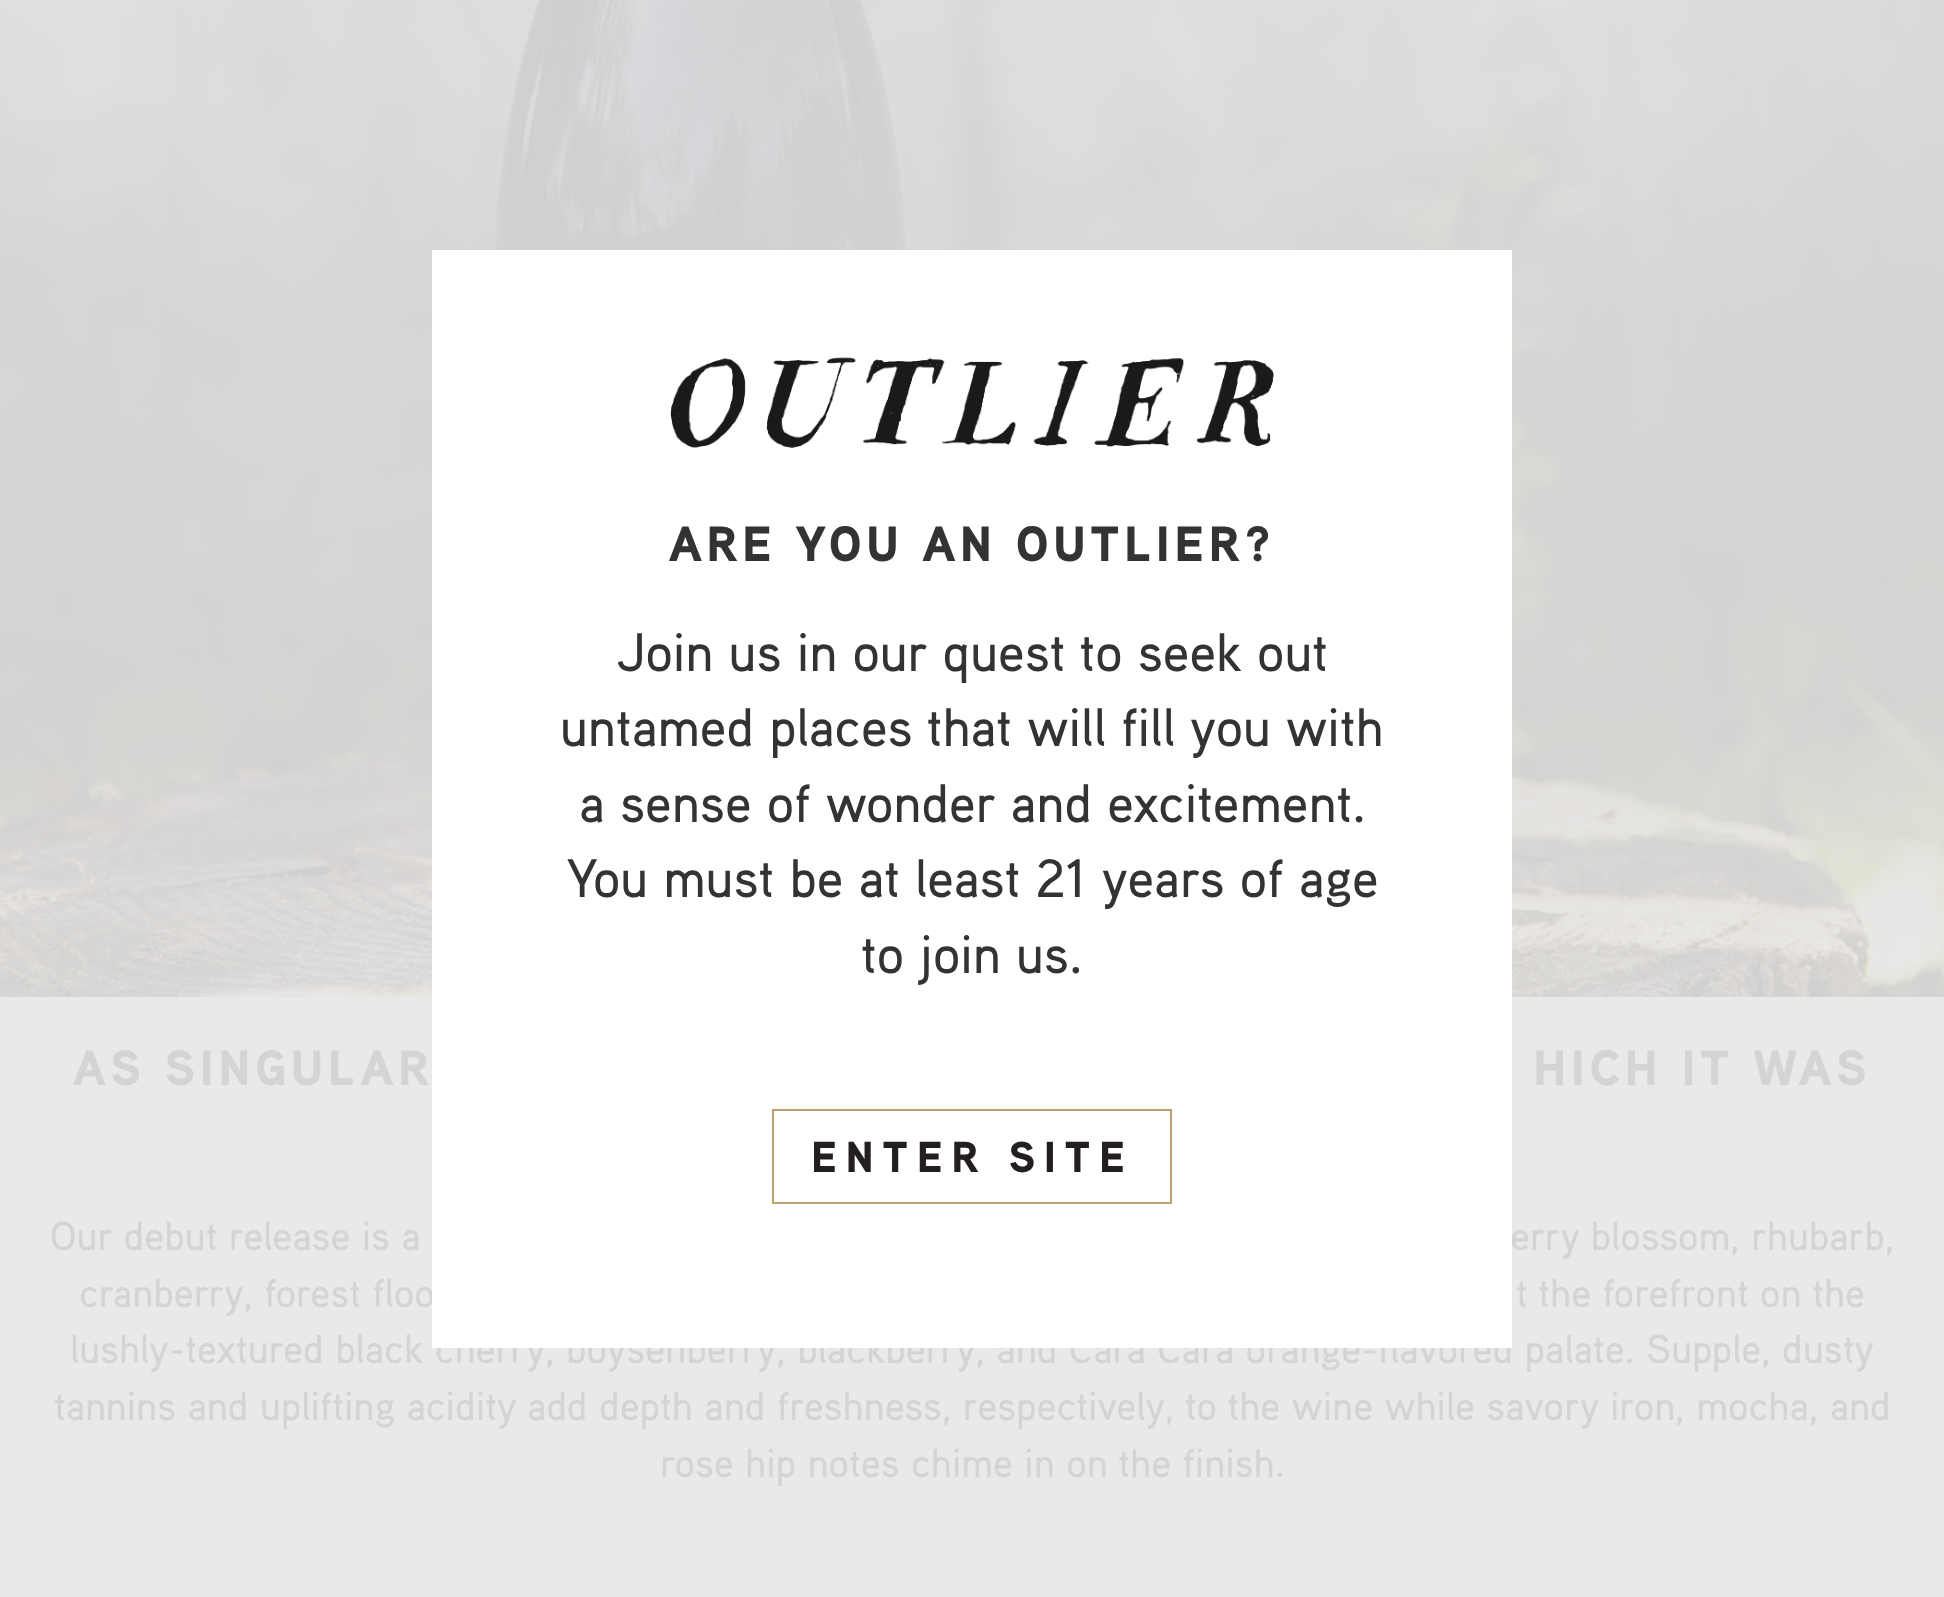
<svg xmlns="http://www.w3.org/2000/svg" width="1944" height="1597">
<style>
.a{font:900 49.5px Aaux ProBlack;letter-spacing:4.5px;fill:#d4d4d4}
.b{font:500 40.5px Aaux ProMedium;fill:#d4d4d4}
.c{font:500 54px Aaux ProMedium;fill:#333}
.d{font:900 43.25px Aaux ProBlack;letter-spacing:8.6px;fill:#231f20}
.e{font:900 49.5px Aaux ProBlack;letter-spacing:4.5px;fill:#333}
</style>
<rect width="100%" height="100%" fill="#e9e9e9"/>
<image href="2.png" x="0" y="0" width="1944" height="997"/>
<text class="a" x="73" y="1085">AS SINGULAR</text>
<text class="a" x="1533" y="1085">HICH IT WAS</text>
<text class="b" x="50" y="1250">Our debut release is a</text>
<text class="b" x="1510" y="1250">erry blossom, rhubarb,</text>
<text class="b" x="79" y="1307">cranberry, forest floo</text>
<text class="b" x="1516" y="1307">t the forefront on the</text>
<text class="b" x="70" y="1363">lushly-textured black cherry, boysenberry, blackberry, and Cara Cara orange-flavored palate. Supple, dusty</text>
<path fill="#fff" d="M432 250h1080v1098H432z"/>
<text class="c" x="861" y="973">to join us.</text>
<text class="c" x="566" y="897">You must be at least 21 years of age</text>
<text class="c" x="579" y="822">a sense of wonder and excitement.</text>
<text class="c" x="560" y="746">untamed places that will fill you with</text>
<text class="c" x="617" y="671">Join us in our quest to seek out</text>
<path fill="none" stroke="#b9a06d" stroke-width="2" d="M773 1110h398v93H773z"/>
<text class="d" x="811" y="1172">ENTER SITE</text>
<text class="e" x="669" y="561">ARE YOU AN OUTLIER?</text>
<image href="1.png" x="670" y="357" width="604" height="91"/>
<text class="b" x="54" y="1420">tannins and uplifting acidity add depth and freshness, respectively, to the wine while savory iron, mocha, and</text>
<text class="b" x="660" y="1477">rose hip notes chime in on the finish.</text>
</svg>
